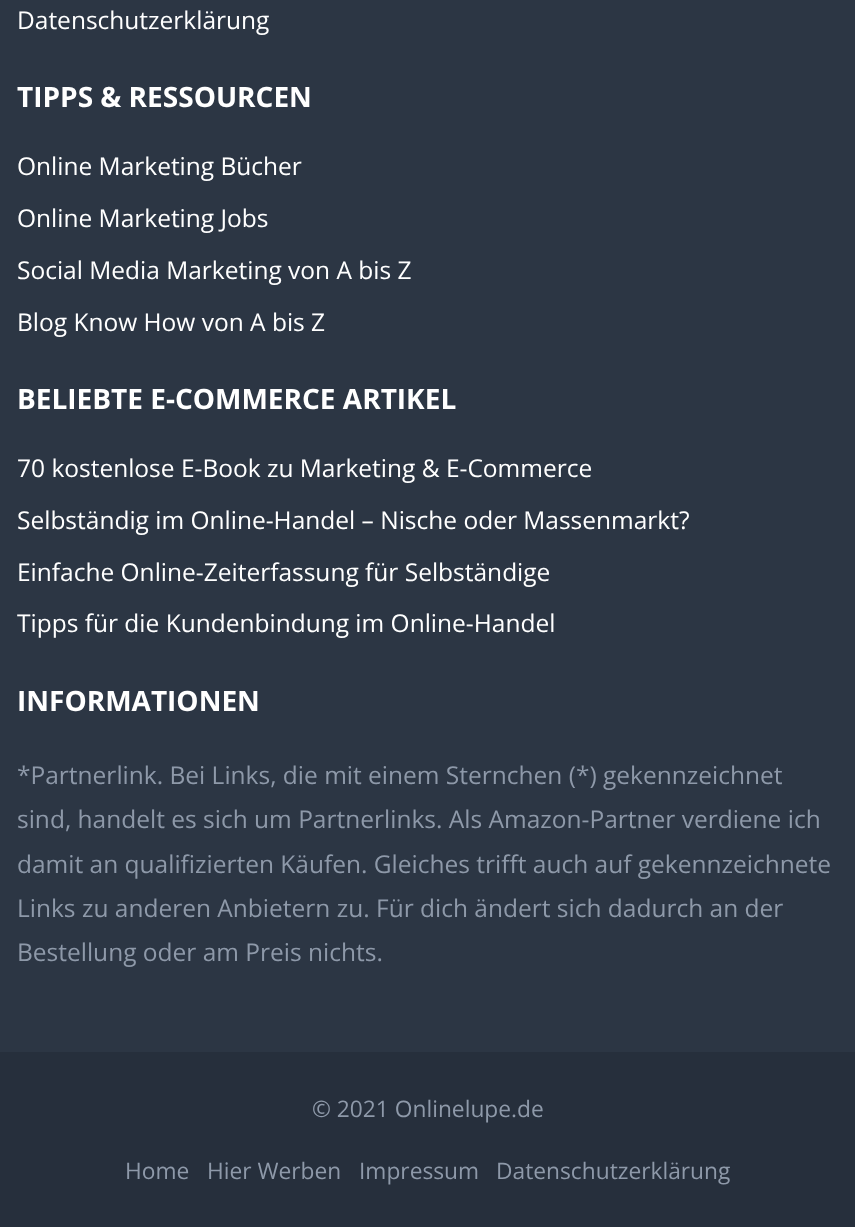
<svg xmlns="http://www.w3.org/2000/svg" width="855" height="1227">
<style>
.a{font:24.5px Open Sans;fill:#fff}
.b{font:bold 28px Open Sans;fill:#fff}
.c{font:24.5px Open Sans;fill:#8e99a9}
.d{font:22.75px Open Sans;fill:#8e99a9}
</style>
<rect width="100%" height="100%" fill="#2c3644"/>
<path fill="#262f3c" d="M0 1052h855v175H0z"/>
<text class="a" x="17" y="29">Datenschutzerklärung</text>
<text class="b" x="17" y="107">TIPPS &amp; RESSOURCEN</text>
<text class="a" x="17" y="175">Online Marketing Bücher</text>
<text class="a" x="17" y="227">Online Marketing Jobs</text>
<text class="a" x="17" y="279">Social Media Marketing von A bis Z</text>
<text class="a" x="17" y="331">Blog Know How von A bis Z</text>
<text class="b" x="17" y="409">BELIEBTE E-COMMERCE ARTIKEL</text>
<text class="a" x="17" y="477">70 kostenlose E-Book zu Marketing &amp; E-Commerce</text>
<text class="a" x="17" y="529">Selbständig im Online-Handel – Nische oder Massenmarkt?</text>
<text class="a" x="17" y="581">Einfache Online-Zeiterfassung für Selbständige</text>
<text class="a" x="17" y="632">Tipps für die Kundenbindung im Online-Handel</text>
<text class="b" x="17" y="711">INFORMATIONEN</text>
<text class="c" x="17" y="784">*Partnerlink. Bei Links, die mit einem Sternchen (*) gekennzeichnet</text>
<text class="c" x="17" y="828">sind, handelt es sich um Partnerlinks. Als Amazon-Partner verdiene ich</text>
<text class="c" x="17" y="873">damit an qualifizierten Käufen. Gleiches trifft auch auf gekennzeichnete</text>
<text class="c" x="17" y="917">Links zu anderen Anbietern zu. Für dich ändert sich dadurch an der</text>
<text class="c" x="17" y="961">Bestellung oder am Preis nichts.</text>
<text class="d" x="312" y="1117">© 2021 Onlinelupe.de</text>
<text class="d" x="125" y="1179">Home</text>
<text class="d" x="207" y="1179">Hier Werben</text>
<text class="d" x="359" y="1179">Impressum</text>
<text class="d" x="496" y="1179">Datenschutzerklärung</text>
</svg>
